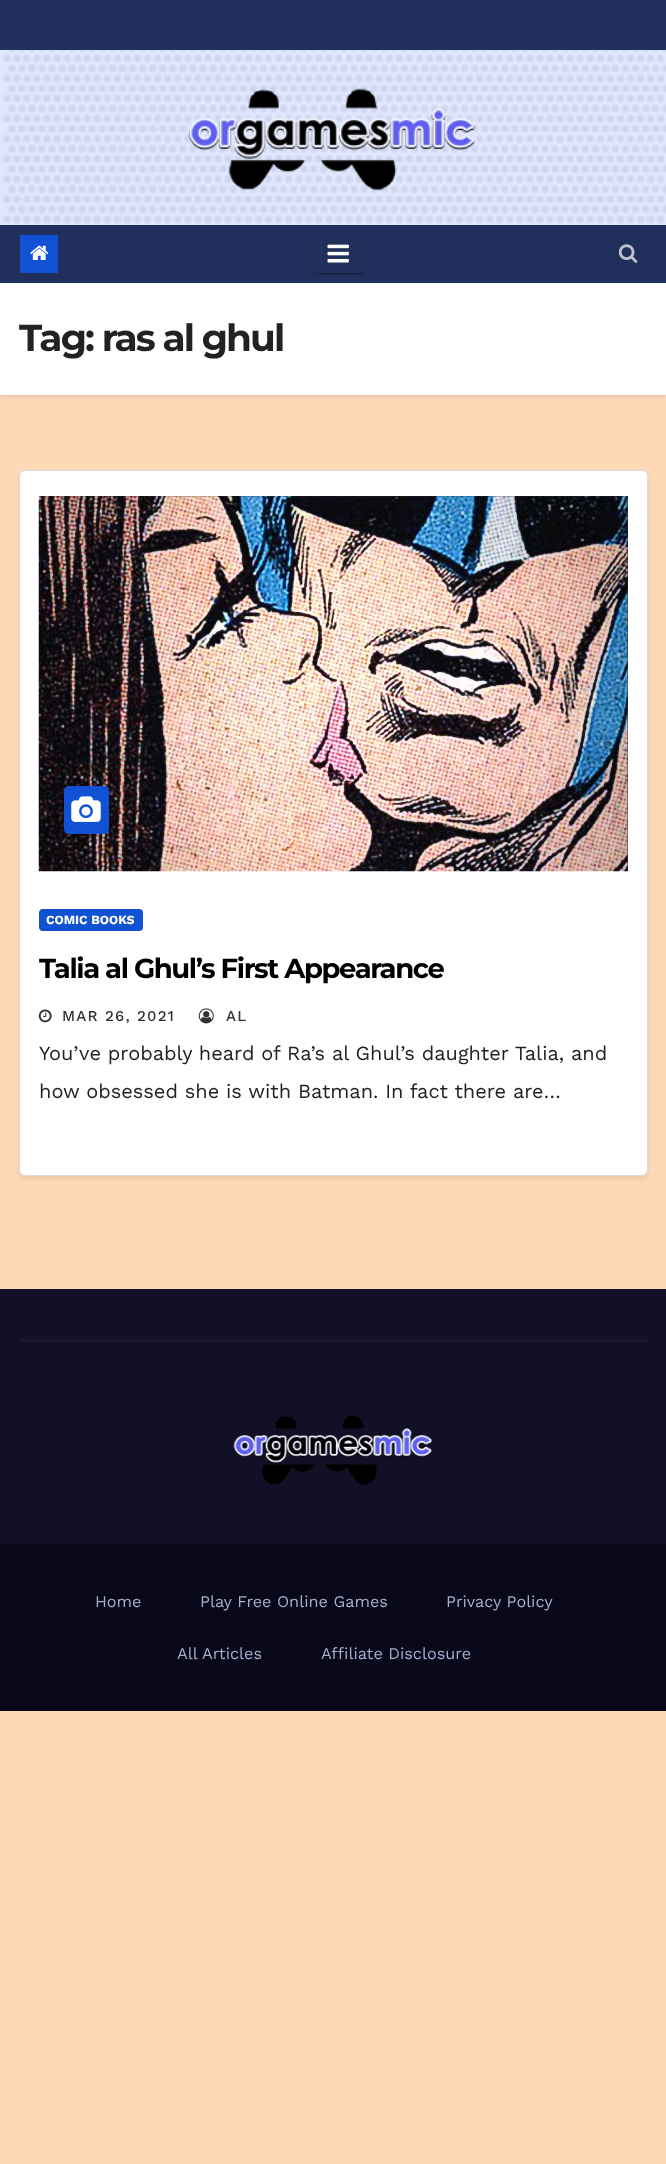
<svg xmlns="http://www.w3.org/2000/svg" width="666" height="2164">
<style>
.a{font:bold 37.5px Montserrat;letter-spacing:-1.9px;fill:#222}
.b{font:bold 12.5px Work Sans;fill:#fff}
.c{font:bold 27.5px Montserrat;letter-spacing:-1.4px;fill:#000}
.d{font:500 15px Work Sans;letter-spacing:1.25px;fill:#333}
.e{font:20px Work Sans;fill:#222}
.f{font:16.25px Work Sans;fill:#aaaed1}
</style>
<defs>
<clipPath id="clip1"><path d="M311 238h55v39h-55zm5-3h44c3 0 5 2 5 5v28c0 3-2 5-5 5h-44c-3 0-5-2-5-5v-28c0-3 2-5 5-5z" clip-rule="evenodd"/></clipPath>
<clipPath id="clip2"><path d="M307 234h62v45h-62zm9 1h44c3 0 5 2 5 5v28c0 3-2 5-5 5h-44c-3 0-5-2-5-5v-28c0-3 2-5 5-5z" clip-rule="evenodd"/></clipPath>
<clipPath id="clip3"><path d="M39 949h589v40H39z"/></clipPath>
</defs>
<rect width="100%" height="100%" fill="#ffd8b7"/>
<path fill="#202f5b" d="M0 0h666v50H0z"/>
<image href="1.png" x="0" y="50" width="666" height="175"/>
<image href="2.png" x="188" y="88" width="288" height="103"/>
<path fill="#00000026" filter="blur(2px)" d="M0 284h666v112H0z"/>
<path fill="#202f5b" d="M0 225h666v58H0z"/>
<path fill="#1151d3" d="M20 235h38v38H20z"/>
<image href="3.png" x="30" y="245" width="19" height="15"/>
<g clip-path="url(#clip1)">
<rect fill="#00000033" filter="blur(0.5px)" x="314" y="241" width="49" height="33" rx="2.5"/>
</g>
<g clip-path="url(#clip2)">
<rect fill="#00000024" filter="blur(1px)" x="311" y="238" width="54" height="37" rx="5"/>
</g>
<image href="4.png" x="327" y="244" width="22" height="19"/>
<image href="5.png" x="618" y="244" width="20" height="19"/>
<path fill="#fff" d="M0 283h666v112H0z"/>
<rect fill="#00000014" filter="blur(2.5px)" x="19" y="473" width="629" height="706" rx="6"/>
<rect fill="#fff" stroke="#dddcdc" x="19.5" y="470.5" width="628" height="705" rx="5.5"/>
<path fill="#333" d="M39 496h589v375H39z"/>
<image href="6.png" x="38" y="496" width="590" height="376"/>
<rect fill="#1151d3" x="64" y="786" width="45" height="48" rx="5"/>
<image href="7.png" x="71" y="796" width="30" height="26"/>
<rect fill="#1151d3" x="39" y="909" width="104" height="22" rx="4"/>
<image href="8.png" x="38" y="1009" width="14" height="14"/>
<image href="9.png" x="198" y="1008" width="16" height="16"/>
<path fill="#121026" d="M0 1289h666v255H0z"/>
<path fill="#1a182e" d="M19 1339h629v3H19z"/>
<image href="10.png" x="233" y="1415" width="199" height="70"/>
<path fill="#090818" d="M0 1544h666v167H0z"/>
<text class="a" x="19" y="351">Tag: ras al ghul</text>
<text class="b" x="46" y="924">COMIC BOOKS</text>
<g clip-path="url(#clip3)">
<text class="c" x="39" y="978">Talia al Ghul’s First Appearance</text>
</g>
<text class="d" x="62" y="1021">MAR 26, 2021</text>
<text class="d" x="226" y="1021">AL</text>
<text class="e" x="39" y="1060">You’ve probably heard of Ra’s al Ghul’s daughter Talia, and</text>
<text class="e" x="39" y="1098">how obsessed she is with Batman. In fact there are…</text>
<text class="f" x="95" y="1607">Home</text>
<text class="f" x="200" y="1607">Play Free Online Games</text>
<text class="f" x="446" y="1607">Privacy Policy</text>
<text class="f" x="177" y="1659">All Articles</text>
<text class="f" x="321" y="1659">Affiliate Disclosure</text>
</svg>
